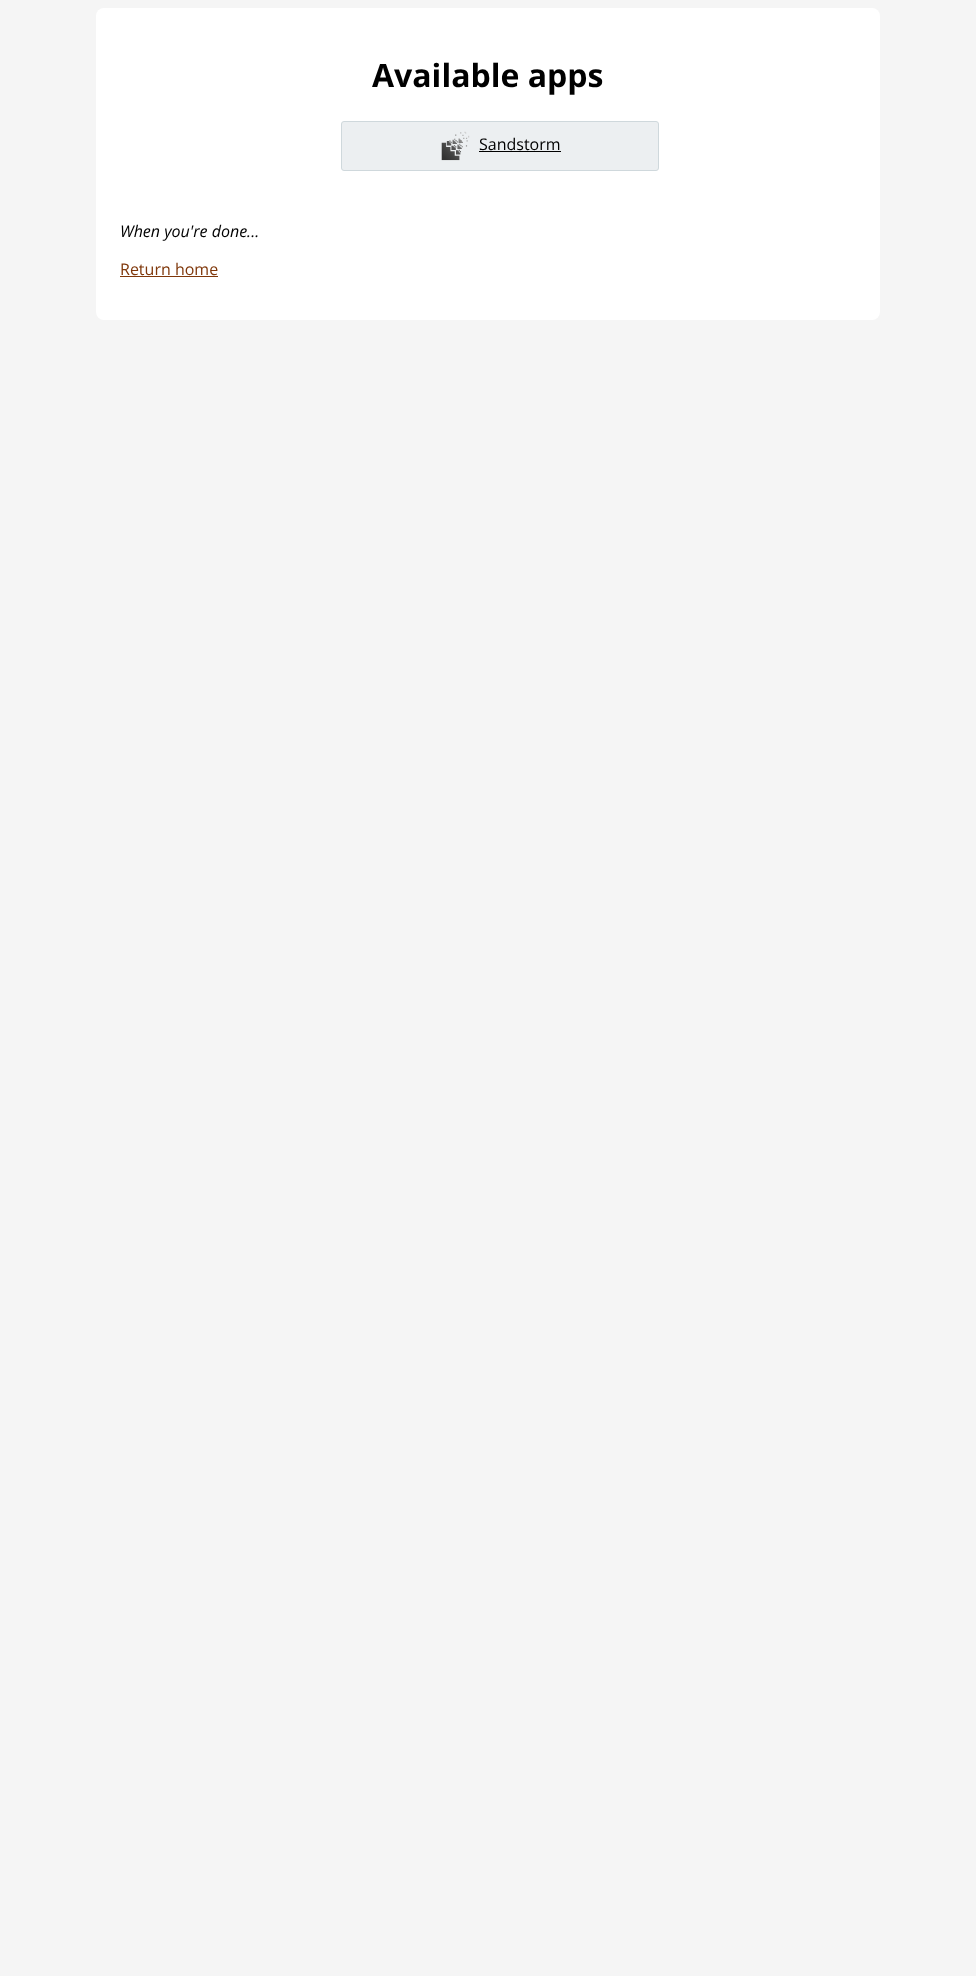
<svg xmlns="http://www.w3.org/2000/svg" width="976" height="1976">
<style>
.a{font:bold 32px Open Sans;fill:#000}
.b{font:16px Open Sans;fill:#000}
.c{font:italic 16px Open Sans;fill:#000}
.d{font:16px Open Sans;fill:#7f370a}
</style>
<rect width="100%" height="100%" fill="#f5f5f5"/>
<rect fill="#fff" x="96" y="8" width="784" height="312" rx="8"/>
<rect fill="#eceff1" stroke="#cfd8dc" x="341.5" y="121.5" width="317" height="49" rx="2.5"/>
<image href="1.png" x="441" y="131" width="29" height="30"/>
<path fill="#000" d="M479 151h82v1H479z"/>
<path fill="#7f370a" d="M120 276h98v1H120z"/>
<text class="a" x="372" y="87">Available apps</text>
<text class="b" x="479" y="150">Sandstorm</text>
<text class="c" x="120" y="237">When you're done...</text>
<text class="d" x="120" y="275">Return home</text>
</svg>
